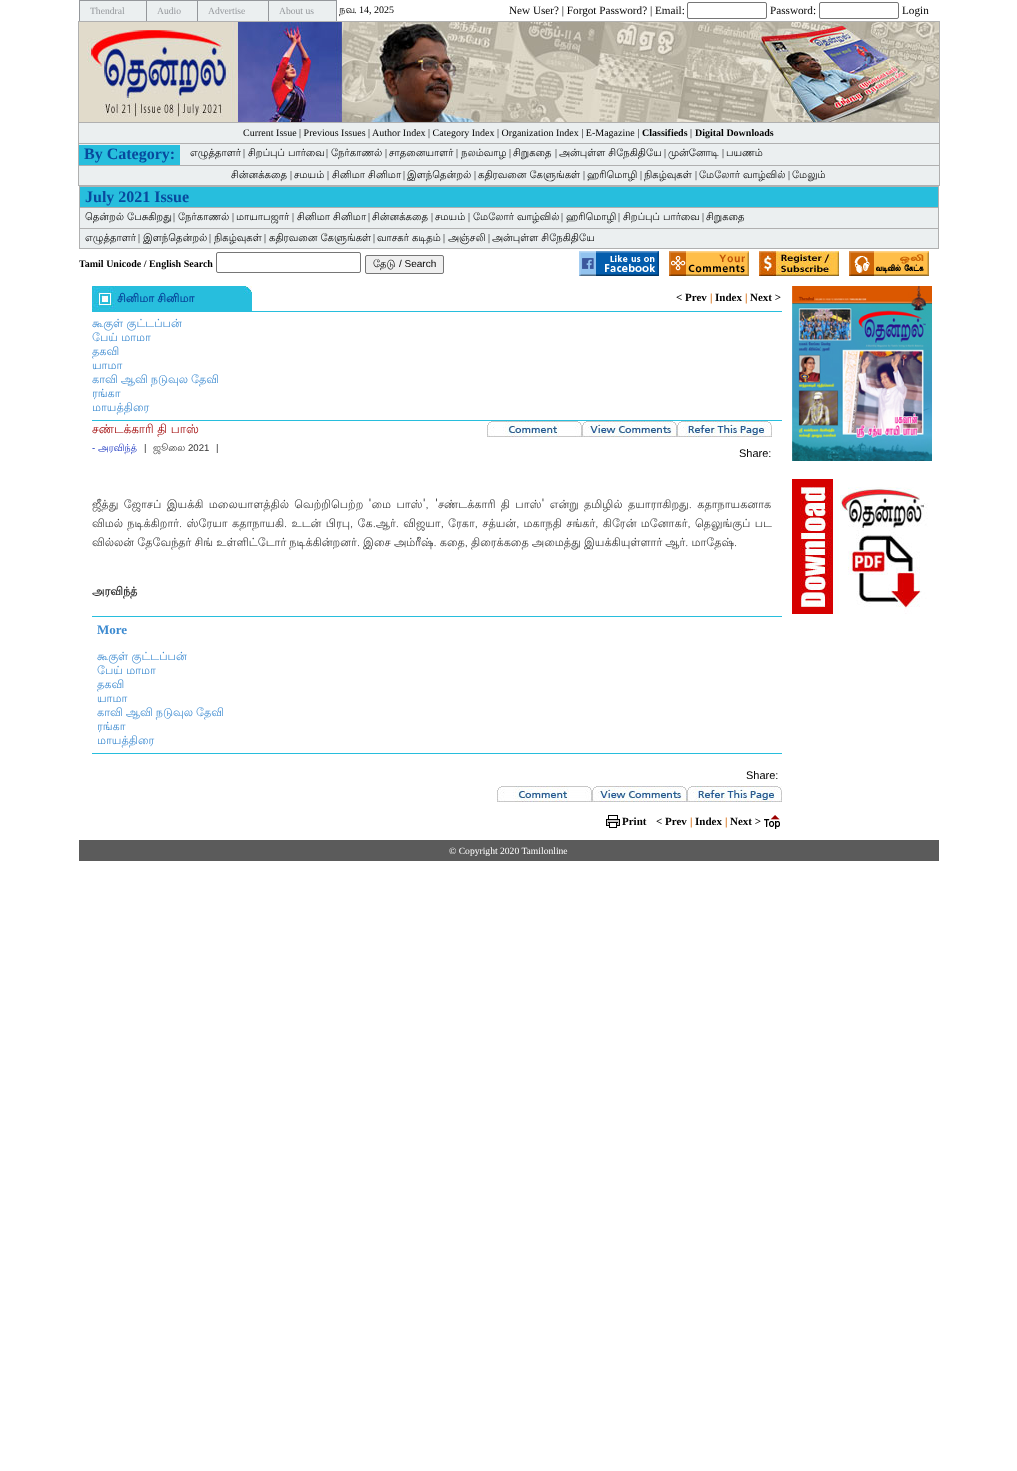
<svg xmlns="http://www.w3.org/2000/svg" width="1017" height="1471">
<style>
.a{font:9.6px Liberation Serif;fill:#94979b}
.b{font:10px Lohit Tamil;fill:#000}
.c{font:10px Liberation Serif;fill:#000}
.d{font:11.2px Liberation Serif;fill:#000}
.e{font:bold 10px Liberation Serif;fill:#000}
.f{font:bold 16px Liberation Serif;fill:#08499d}
.g{font:10px Liberation Sans;fill:#000}
.h{font:bold 11.2px Lohit Tamil;fill:#08499d}
.i{font:bold 11px Liberation Serif;fill:#000}
.j{font:bold 11px Liberation Serif;fill:#d16200}
.k{font:11.2px Lohit Tamil;fill:#3c8ad0}
.l{font:12px Lohit Tamil;fill:#9e0000}
.m{font:9.6px Liberation Sans;fill:#132fbf}
.n{font:9.6px Lohit Tamil;fill:#132fbf}
.o{font:9.6px Liberation Sans;fill:#333}
.p{font:9.6px Lohit Tamil;fill:#333}
.q{font:11px Liberation Sans;fill:#000}
.r{font:11.2px Lohit Tamil;fill:#333}
.s{font:bold 11.2px Lohit Tamil;fill:#333}
.t{font:bold 13px Liberation Serif;fill:#3c8ad0}
.u{font:9.6px Liberation Serif;fill:#fff}
</style>
<rect width="100%" height="100%" fill="#fff"/>
<path fill="#ebeff0" d="M80 1h256v20H80z"/>
<path fill="#94979b" d="M79 0h258v1H79z"/>
<path fill="#94979b" d="M146 0h1v21H146z"/>
<path fill="#94979b" d="M79 0h1v21H79z"/>
<path fill="#94979b" d="M197 0h1v21H197z"/>
<path fill="#94979b" d="M268 0h1v21H268z"/>
<path fill="#94979b" d="M336 0h1v21H336z"/>
<rect fill="none" stroke="#767676" x="687.5" y="2.5" width="79" height="16" rx="1.5"/>
<rect fill="none" stroke="#767676" x="819.5" y="2.5" width="79" height="16" rx="1.5"/>
<path fill="#ebeff0" d="M79 123h860v62H79z"/>
<path fill="#b0b0b0" d="M78 21h862v1H78z"/>
<path fill="#b0b0b0" d="M939 21h1v165H939z"/>
<path fill="#b0b0b0" d="M78 185h862v1H78z"/>
<path fill="#b0b0b0" d="M78 122h861v1H78z"/>
<path fill="#b0b0b0" d="M78 143h861v1H78z"/>
<path fill="#b0b0b0" d="M78 165h861v1H78z"/>
<path fill="#b0b0b0" d="M78 21h1v165H78z"/>
<image href="1.png" x="79" y="22" width="860" height="100"/>
<path fill="#27bedd" d="M79 145h101v20H79z"/>
<path fill="#ebeff0" d="M80 208h858v40H80z"/>
<path fill="#b0b0b0" d="M79 186h860v1H79z"/>
<path fill="#b0b0b0" d="M938 186h1v63H938z"/>
<path fill="#b0b0b0" d="M79 248h860v1H79z"/>
<path fill="#b0b0b0" d="M79 207h859v1H79z"/>
<path fill="#b0b0b0" d="M79 228h859v1H79z"/>
<path fill="#b0b0b0" d="M79 186h1v63H79z"/>
<path fill="#27bedd" d="M80 187h858v20H80z"/>
<rect fill="none" stroke="#767676" x="216.5" y="252.5" width="144" height="20" rx="1.5"/>
<rect fill="#efefef" stroke="#767676" x="365.5" y="255.5" width="78" height="18" rx="1.5"/>
<image href="2.png" x="579" y="251" width="80" height="25"/>
<image href="3.png" x="669" y="251" width="80" height="25"/>
<image href="4.png" x="759" y="251" width="80" height="25"/>
<image href="5.png" x="849" y="251" width="80" height="25"/>
<image href="6.png" x="92" y="286" width="25" height="25"/>
<path fill="#27bedd" d="M117 286h127v25H117z"/>
<image href="7.png" x="244" y="286" width="8" height="25"/>
<path fill="#27bedd" d="M92 311h690v1H92z"/>
<path fill="#27bedd" d="M92 420h690v1H92z"/>
<image href="8.png" x="487" y="421" width="95" height="16"/>
<image href="9.png" x="582" y="421" width="95" height="16"/>
<image href="10.png" x="677" y="421" width="95" height="16"/>
<path fill="#27bedd" d="M92 616h690v1H92z"/>
<path fill="#27bedd" d="M92 753h690v1H92z"/>
<image href="8.png" x="497" y="786" width="95" height="16"/>
<image href="9.png" x="592" y="786" width="95" height="16"/>
<image href="10.png" x="687" y="786" width="95" height="16"/>
<image href="11.png" x="606" y="815" width="14" height="13"/>
<image href="12.png" x="764" y="815" width="16" height="14"/>
<image href="13.png" x="792" y="286" width="140" height="175"/>
<image href="14.png" x="792" y="479" width="136" height="135"/>
<path fill="#5b5b5b" d="M79 840h860v21H79z"/>
<text class="a" x="90" y="14">Thendral</text>
<text class="a" x="157" y="14">Audio</text>
<text class="a" x="208" y="14">Advertise</text>
<text class="a" x="279" y="14">About us</text>
<text class="b" x="339" y="13">நவ</text>
<text class="c" x="354" y="13">. 14, 2025</text>
<text class="d" x="509" y="14">New User? | Forgot Password? | Email:</text>
<text class="d" x="770" y="14">Password:</text>
<text class="d" x="902" y="14">Login</text>
<text class="c" x="243" y="136">Current Issue | Previous Issues | Author Index | Category Index | Organization Index | E-Magazine |</text>
<text class="e" x="642" y="136">Classifieds</text>
<text class="c" x="690" y="136">|</text>
<text class="e" x="695" y="136">Digital Downloads</text>
<text class="f" x="84" y="159">By Category:</text>
<text class="b" x="190" y="156">எழுத்தாளர்</text>
<text class="c" x="243" y="156">|</text>
<text class="b" x="248" y="156">சிறப்புப் பார்வை</text>
<text class="c" x="326" y="156">|</text>
<text class="b" x="331" y="156">நேர்காணல்</text>
<text class="c" x="385" y="156">|</text>
<text class="b" x="389" y="156">சாதனையாளர்</text>
<text class="c" x="456" y="156">|</text>
<text class="b" x="461" y="156">நலம்வாழ</text>
<text class="c" x="509" y="156">|</text>
<text class="b" x="513" y="156">சிறுகதை</text>
<text class="c" x="555" y="156">|</text>
<text class="b" x="559" y="156">அன்புள்ள சிநேகிதியே</text>
<text class="c" x="664" y="156">|</text>
<text class="b" x="668" y="156">முன்னோடி</text>
<text class="c" x="722" y="156">|</text>
<text class="b" x="726" y="156">பயணம்</text>
<text class="b" x="231" y="178">சின்னக்கதை</text>
<text class="c" x="290" y="178">|</text>
<text class="b" x="294" y="178">சமயம்</text>
<text class="c" x="327" y="178">|</text>
<text class="b" x="332" y="178">சினிமா சினிமா</text>
<text class="c" x="403" y="178">|</text>
<text class="b" x="407" y="178">இளந்தென்றல்</text>
<text class="c" x="474" y="178">|</text>
<text class="b" x="478" y="178">கதிரவனை கேளுங்கள்</text>
<text class="c" x="583" y="178">|</text>
<text class="b" x="587" y="178">ஹரிமொழி</text>
<text class="c" x="640" y="178">|</text>
<text class="b" x="644" y="178">நிகழ்வுகள்</text>
<text class="c" x="695" y="178">|</text>
<text class="b" x="699" y="178">மேலோர் வாழ்வில்</text>
<text class="c" x="788" y="178">|</text>
<text class="b" x="792" y="178">மேலும்</text>
<text class="f" x="85" y="202">July 2021 Issue</text>
<text class="b" x="85" y="220">தென்றல் பேசுகிறது</text>
<text class="c" x="173" y="220">|</text>
<text class="b" x="178" y="220">நேர்காணல்</text>
<text class="c" x="232" y="220">|</text>
<text class="b" x="236" y="220">மாயாபஜார்</text>
<text class="c" x="292" y="220">|</text>
<text class="b" x="297" y="220">சினிமா சினிமா</text>
<text class="c" x="368" y="220">|</text>
<text class="b" x="372" y="220">சின்னக்கதை</text>
<text class="c" x="431" y="220">|</text>
<text class="b" x="435" y="220">சமயம்</text>
<text class="c" x="468" y="220">|</text>
<text class="b" x="473" y="220">மேலோர் வாழ்வில்</text>
<text class="c" x="561" y="220">|</text>
<text class="b" x="566" y="220">ஹரிமொழி</text>
<text class="c" x="618" y="220">|</text>
<text class="b" x="623" y="220">சிறப்புப் பார்வை</text>
<text class="c" x="702" y="220">|</text>
<text class="b" x="706" y="220">சிறுகதை</text>
<text class="b" x="85" y="241">எழுத்தாளர்</text>
<text class="c" x="138" y="241">|</text>
<text class="b" x="143" y="241">இளந்தென்றல்</text>
<text class="c" x="209" y="241">|</text>
<text class="b" x="214" y="241">நிகழ்வுகள்</text>
<text class="c" x="264" y="241">|</text>
<text class="b" x="269" y="241">கதிரவனை கேளுங்கள்</text>
<text class="c" x="373" y="241">|</text>
<text class="b" x="377" y="241">வாசகர் கடிதம்</text>
<text class="c" x="443" y="241">|</text>
<text class="b" x="448" y="241">அஞ்சலி</text>
<text class="c" x="488" y="241">|</text>
<text class="b" x="492" y="241">அன்புள்ள சிநேகிதியே</text>
<text class="e" x="79" y="267">Tamil Unicode / English Search</text>
<text class="b" x="373" y="267">தேடு</text>
<text class="g" x="399" y="267">/ Search</text>
<text class="h" x="117" y="302">சினிமா சினிமா</text>
<text class="i" x="676" y="301">&lt; Prev</text>
<text class="j" x="710" y="301">|</text>
<text class="i" x="715" y="301">Index</text>
<text class="j" x="745" y="301">|</text>
<text class="i" x="750" y="301">Next &gt;</text>
<text class="k" x="92" y="327">கூகுள் குட்டப்பன்</text>
<text class="k" x="92" y="341">பேய் மாமா</text>
<text class="k" x="92" y="355">தகவி</text>
<text class="k" x="92" y="369">யாமா</text>
<text class="k" x="92" y="383" word-spacing="-0.25">காவி ஆவி நடுவுல தேவி</text>
<text class="k" x="92" y="397">ரங்கா</text>
<text class="k" x="92" y="411">மாயத்திரை</text>
<text class="l" x="92" y="433">சண்டக்காரி தி பாஸ்</text>
<text class="m" x="92" y="451">-</text>
<text class="n" x="98" y="451">அரவிந்த்</text>
<text class="o" x="144" y="451">|</text>
<text class="p" x="153" y="451">ஜூலை</text>
<text class="o" x="188" y="451">2021</text>
<text class="o" x="216" y="451">|</text>
<text class="q" x="739" y="457">Share:</text>
<text class="r" x="92" y="508" word-spacing="2">ஜீத்து ஜோசப் இயக்கி மலையாளத்தில் வெற்றிபெற்ற 'மை பாஸ்',</text>
<text class="r" x="435" y="508" word-spacing="2">'சண்டக்காரி தி பாஸ்' என்று தமிழில் தயாராகிறது. கதாநாயகனாக</text>
<text class="r" x="92" y="527" word-spacing="1">விமல் நடிக்கிறார். ஸ்ரேயா கதாநாயகி. உடன் பிரபு, கே.ஆர். விஜயா, ரேகா, சத்யன், மகாநதி சங்கர், கிரேன் மனோகர், தெலுங்குப் பட</text>
<text class="r" x="92" y="546" word-spacing="-0.25">வில்லன் தேவேந்தர் சிங் உள்ளிட்டோர் நடிக்கின்றனர். இசை அம்ரீஷ். கதை, திரைக்கதை அமைத்து இயக்கியுள்ளார் ஆர். மாதேஷ்.</text>
<text class="s" x="92" y="595">அரவிந்த்</text>
<text class="t" x="97" y="634">More</text>
<text class="k" x="97" y="660">கூகுள் குட்டப்பன்</text>
<text class="k" x="97" y="674">பேய் மாமா</text>
<text class="k" x="97" y="688">தகவி</text>
<text class="k" x="97" y="702">யாமா</text>
<text class="k" x="97" y="716" word-spacing="-0.25">காவி ஆவி நடுவுல தேவி</text>
<text class="k" x="97" y="730">ரங்கா</text>
<text class="k" x="97" y="744">மாயத்திரை</text>
<text class="q" x="746" y="779">Share:</text>
<text class="i" x="622" y="825">Print</text>
<text class="i" x="656" y="825">&lt; Prev</text>
<text class="j" x="690" y="825">|</text>
<text class="i" x="695" y="825">Index</text>
<text class="j" x="725" y="825">|</text>
<text class="i" x="730" y="825">Next &gt;</text>
<text class="u" x="449" y="854">© Copyright 2020 Tamilonline</text>
</svg>
